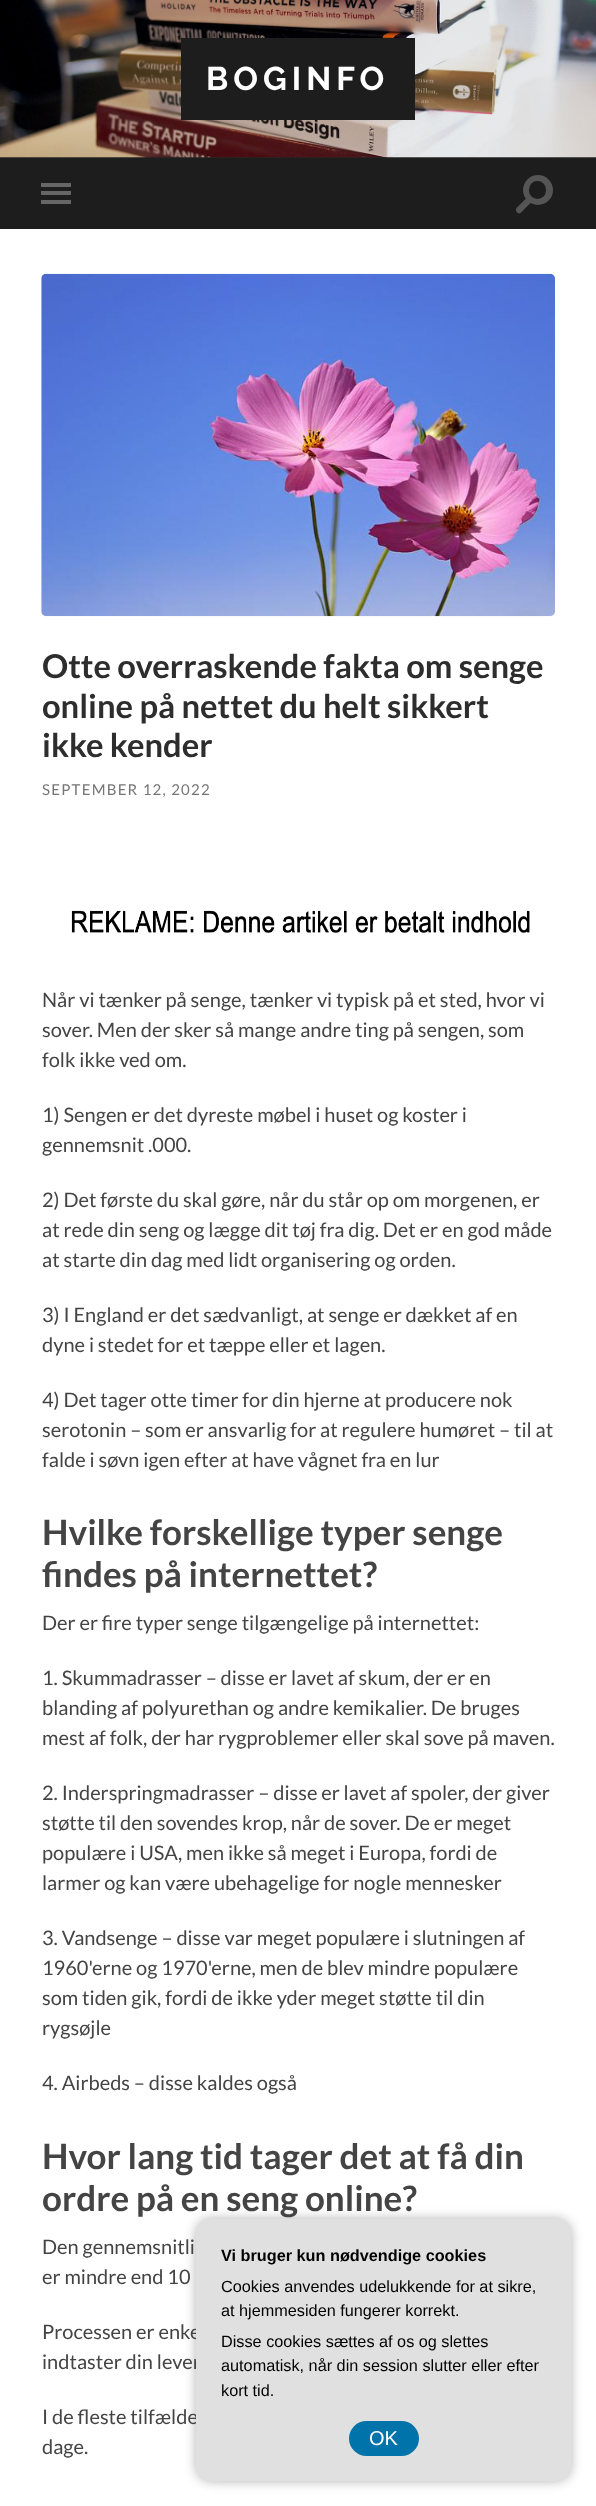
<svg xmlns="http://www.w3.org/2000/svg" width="596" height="2506">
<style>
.a{font:100 32.75px Raleway;letter-spacing:5px;fill:#fff}
.b{font:bold 32.75px Lato;fill:#2d2d2d}
.c{font:15px Lato;letter-spacing:1.25px;fill:#767676}
.d{font:20px Lato;fill:#444}
.e{font:bold 35px Lato;fill:#444}
.f{font:bold 16.25px Liberation Sans;fill:#000}
.g{font:16.25px Liberation Sans;fill:#000}
.h{font:20px Liberation Sans;fill:#fff}
</style>
<rect width="100%" height="100%" fill="#fff"/>
<path fill="#262626" d="M0 157h596v1H0z"/>
<image href="1.png" x="0" y="0" width="596" height="158"/>
<path fill="#1d1d1d" d="M181 38h234v82H181z"/>
<path fill="#1d1d1d" d="M0 158h596v71H0z"/>
<path fill="#666" d="M41 183h30v4H41z"/>
<path fill="#666" d="M41 191h30v4H41z"/>
<path fill="#666" d="M41 200h30v4H41z"/>
<circle fill="#555" cx="538" cy="190" r="15"/>
<rect fill="#1d1d1d" x="529" y="181" width="17" height="18" rx="8.5"/>
<path fill="#555" d="M516.5 208l10.5-10.5l4.5 4.5l-7 7c-2.5 2.5-5 7-8 2.5c-1-1-.5-2.5 0-3.5z"/>
<image href="2.png" x="41" y="273" width="514" height="344"/>
<image href="3.png" x="71" y="910" width="459" height="23"/>
<rect fill="#0000004d" filter="blur(6px)" x="196" y="2219" width="375" height="262" rx="15"/>
<text class="a" x="206" y="90">BOGINFO</text>
<text class="b" x="42" y="678">Otte overraskende fakta om senge</text>
<text class="b" x="42" y="718">online på nettet du helt sikkert</text>
<text class="b" x="42" y="757">ikke kender</text>
<text class="c" x="42" y="795">SEPTEMBER 12, 2022</text>
<text class="d" x="42" y="1007">Når vi tænker på senge, tænker vi typisk på et sted, hvor vi</text>
<text class="d" x="42" y="1037">sover. Men der sker så mange andre ting på sengen, som</text>
<text class="d" x="42" y="1067">folk ikke ved om.</text>
<text class="d" x="42" y="1122">1) Sengen er det dyreste møbel i huset og koster i</text>
<text class="d" x="42" y="1152">gennemsnit .000.</text>
<text class="d" x="42" y="1207">2) Det første du skal gøre, når du står op om morgenen, er</text>
<text class="d" x="42" y="1237">at rede din seng og lægge dit tøj fra dig. Det er en god måde</text>
<text class="d" x="42" y="1267">at starte din dag med lidt organisering og orden.</text>
<text class="d" x="42" y="1322">3) I England er det sædvanligt, at senge er dækket af en</text>
<text class="d" x="42" y="1352">dyne i stedet for et tæppe eller et lagen.</text>
<text class="d" x="42" y="1407">4) Det tager otte timer for din hjerne at producere nok</text>
<text class="d" x="42" y="1437">serotonin – som er ansvarlig for at regulere humøret – til at</text>
<text class="d" x="42" y="1467">falde i søvn igen efter at have vågnet fra en lur</text>
<text class="e" x="42" y="1545">Hvilke forskellige typer senge</text>
<text class="e" x="42" y="1587">findes på internettet?</text>
<text class="d" x="42" y="1630">Der er fire typer senge tilgængelige på internettet:</text>
<text class="d" x="42" y="1685">1. Skummadrasser – disse er lavet af skum, der er en</text>
<text class="d" x="42" y="1715">blanding af polyurethan og andre kemikalier. De bruges</text>
<text class="d" x="42" y="1745">mest af folk, der har rygproblemer eller skal sove på maven.</text>
<text class="d" x="42" y="1800">2. Inderspringmadrasser – disse er lavet af spoler, der giver</text>
<text class="d" x="42" y="1830">støtte til den sovendes krop, når de sover. De er meget</text>
<text class="d" x="42" y="1860">populære i USA, men ikke så meget i Europa, fordi de</text>
<text class="d" x="42" y="1890">larmer og kan være ubehagelige for nogle mennesker</text>
<text class="d" x="42" y="1945">3. Vandsenge – disse var meget populære i slutningen af</text>
<text class="d" x="42" y="1975">1960'erne og 1970'erne, men de blev mindre populære</text>
<text class="d" x="42" y="2005">som tiden gik, fordi de ikke yder meget støtte til din</text>
<text class="d" x="42" y="2035">rygsøjle</text>
<text class="d" x="42" y="2090">4. Airbeds – disse kaldes også</text>
<text class="e" x="42" y="2169">Hvor lang tid tager det at få din</text>
<text class="e" x="42" y="2211">ordre på en seng online?</text>
<text class="d" x="42" y="2254">Den gennemsnitli</text>
<text class="d" x="42" y="2284">er mindre end 10</text>
<text class="d" x="42" y="2339">Processen er enke</text>
<text class="d" x="42" y="2369">indtaster din lever</text>
<text class="d" x="42" y="2424">I de fleste tilfælde</text>
<text class="d" x="42" y="2454">dage.</text>
<rect fill="#e0e0e0" x="196" y="2219" width="375" height="262" rx="15"/>
<text class="f" x="221" y="2261">Vi bruger kun nødvendige cookies</text>
<text class="g" x="221" y="2292">Cookies anvendes udelukkende for at sikre,</text>
<text class="g" x="221" y="2316">at hjemmesiden fungerer korrekt.</text>
<text class="g" x="221" y="2347">Disse cookies sættes af os og slettes</text>
<text class="g" x="221" y="2371">automatisk, når din session slutter eller efter</text>
<text class="g" x="221" y="2396">kort tid.</text>
<rect fill="#0073aa" x="349" y="2421" width="70" height="35" rx="17.5"/>
<text class="h" x="369" y="2445">OK</text>
</svg>
